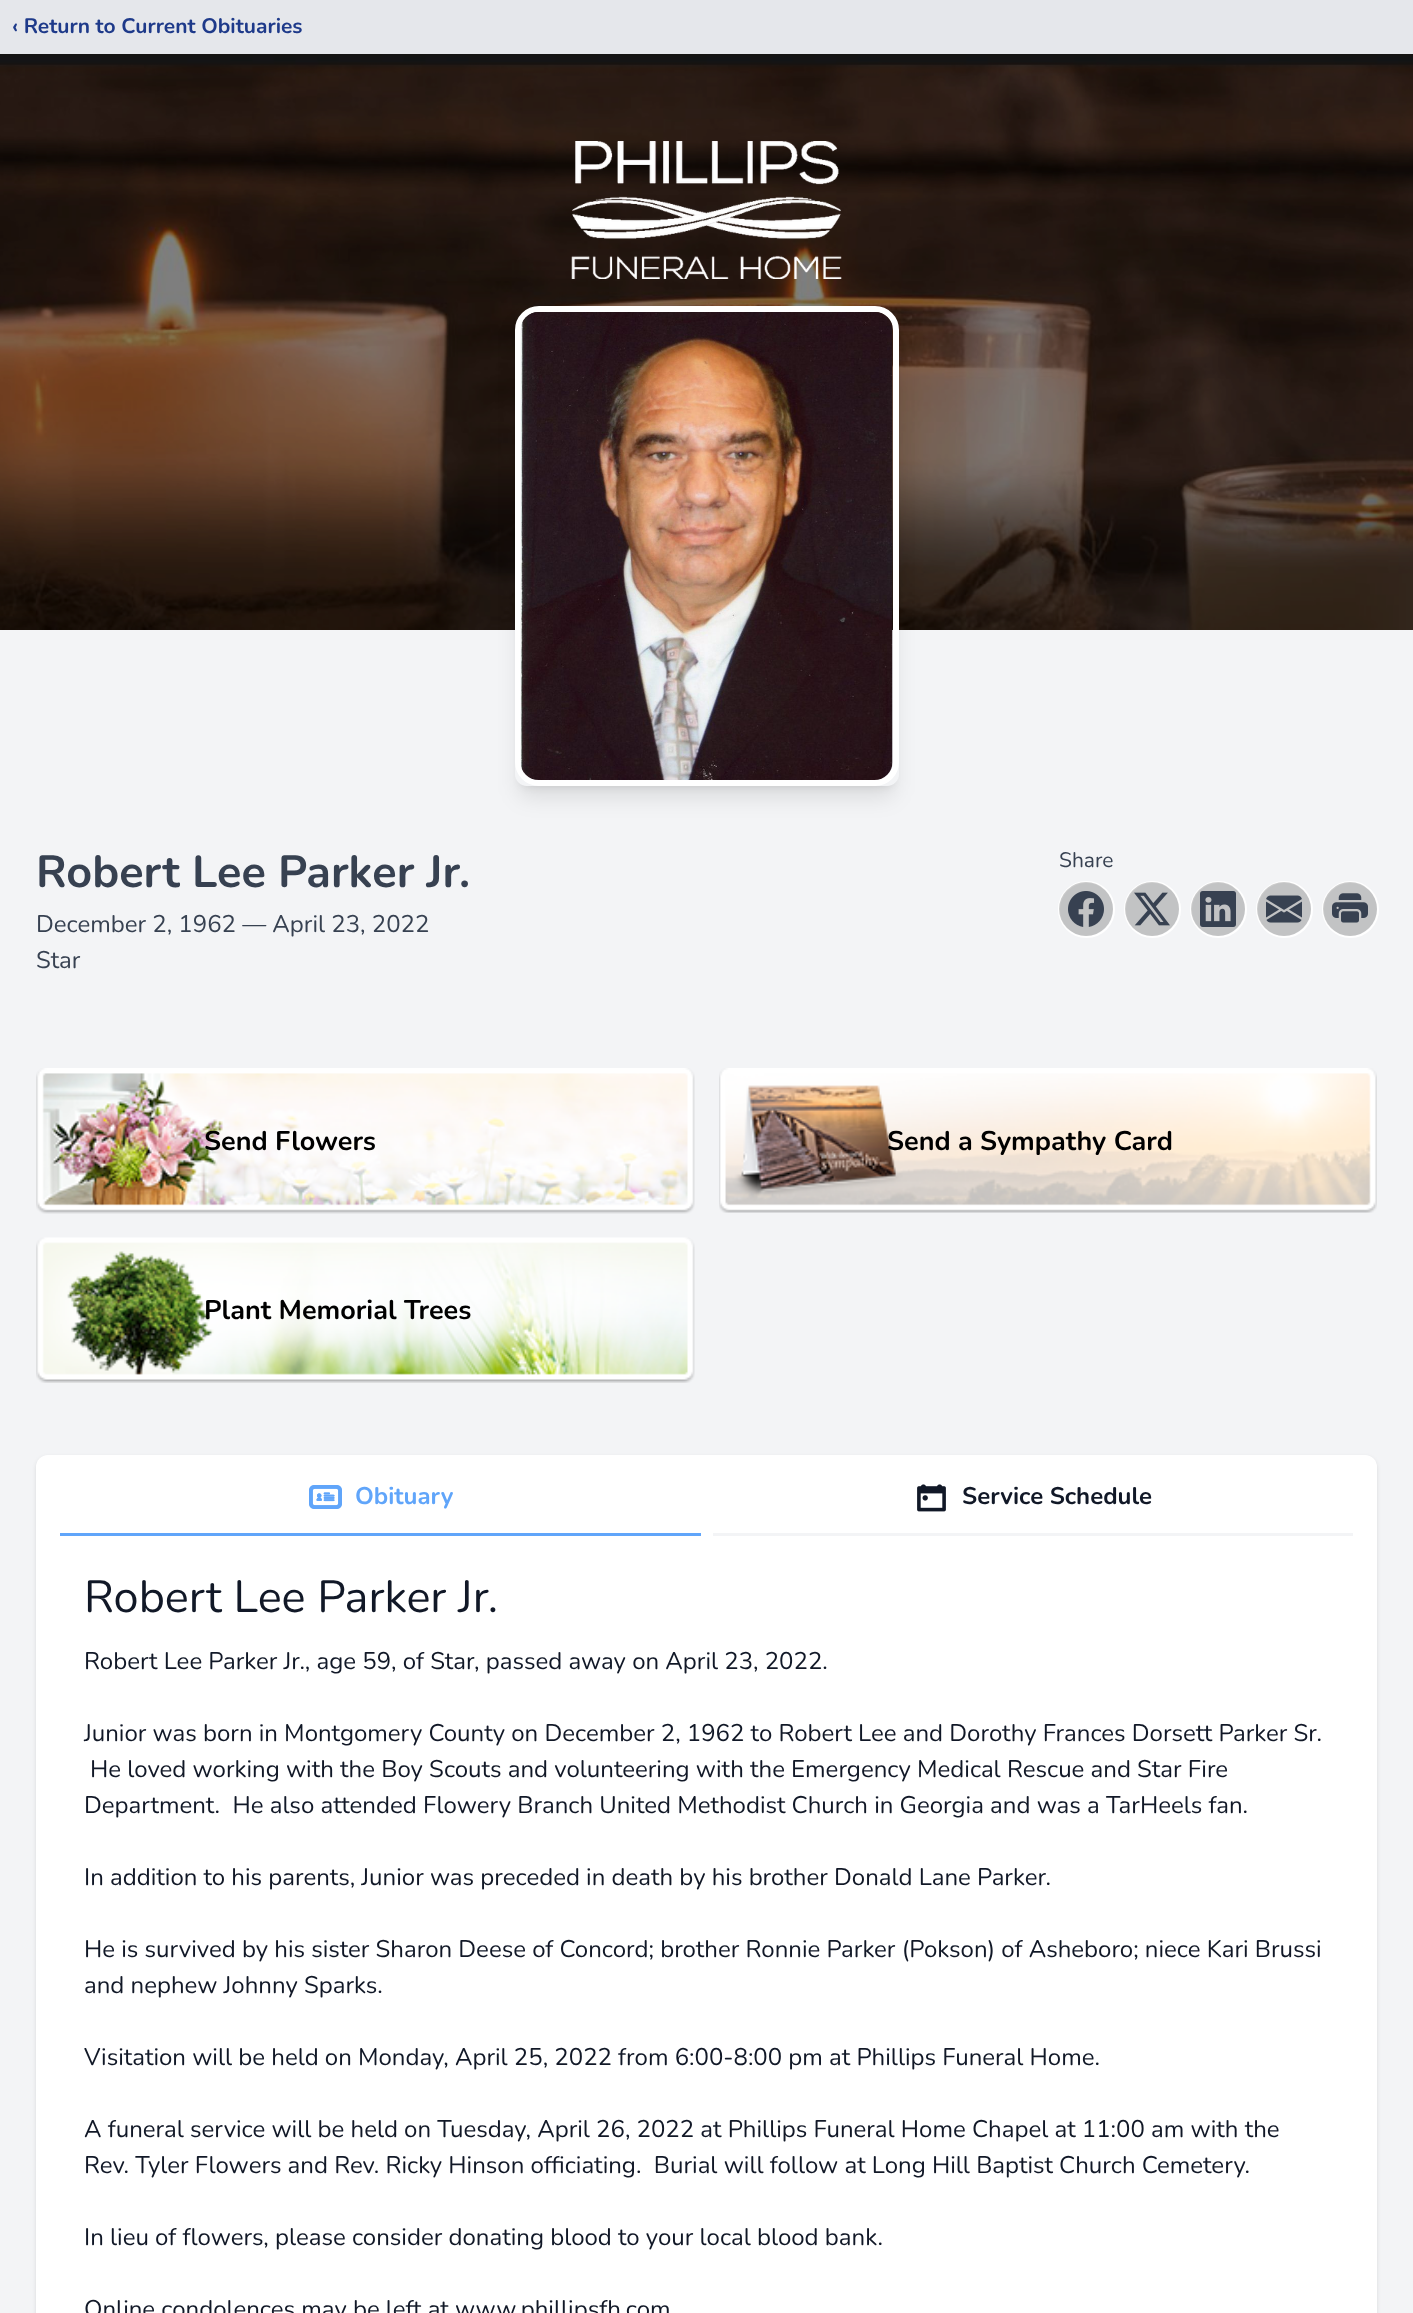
<svg xmlns="http://www.w3.org/2000/svg" width="1413" height="2313">
<style>
.a{font:bold 21px Nunito;fill:#1e3a8a}
.b{font:bold 45px Nunito;fill:#374151}
.c{font:24px Nunito;fill:#374151}
.d{font:21px Nunito;fill:#374151}
.e{font:bold 27px Nunito;fill:#000}
.f{font:bold 24px Nunito;fill:#60a5fa}
.g{font:bold 24px Nunito;fill:#111827}
.h{font:45px Nunito;fill:#111827}
.i{font:24px Nunito;fill:#111827}
</style>
<defs>
<clipPath id="clip1"><path d="M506 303h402v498h-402zm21 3h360c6.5 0 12 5.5 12 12v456c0 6.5-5.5 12-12 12h-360c-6.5 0-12-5.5-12-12v-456c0-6.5 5.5-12 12-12z" clip-rule="evenodd"/></clipPath>
<clipPath id="clip2"><path d="M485 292h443v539h-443zm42 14h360c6.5 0 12 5.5 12 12v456c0 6.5-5.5 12-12 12h-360c-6.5 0-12-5.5-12-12v-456c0-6.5 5.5-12 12-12z" clip-rule="evenodd"/></clipPath>
</defs>
<rect width="100%" height="100%" fill="#f3f4f6"/>
<path fill="#e5e7eb" d="M0 0h1413v54H0z"/>
<image href="1.png" x="0" y="54" width="1413" height="576"/>
<image href="2.png" x="571" y="141" width="271" height="138"/>
<g clip-path="url(#clip1)">
<rect fill="#0000001a" filter="blur(4.5px)" x="521" y="318" width="372" height="468" rx="6"/>
</g>
<g clip-path="url(#clip2)">
<rect fill="#0000001a" filter="blur(11px)" x="519" y="326" width="375" height="471" rx="8"/>
</g>
<rect fill="none" stroke="#fff" stroke-width="6" x="518" y="309" width="378" height="474" rx="21"/>
<image href="3.png" x="520" y="312" width="373" height="468"/>
<circle fill="none" stroke="#fff" stroke-width="2" cx="1086.5" cy="909.5" r="27.5"/>
<circle fill="#00000033" cx="1086" cy="909" r="27"/>
<image href="4.png" x="1068" y="891" width="36" height="36"/>
<circle fill="none" stroke="#fff" stroke-width="2" cx="1152.5" cy="909.5" r="27.5"/>
<circle fill="#00000033" cx="1152" cy="909" r="27"/>
<image href="5.png" x="1134" y="892" width="36" height="34"/>
<circle fill="none" stroke="#fff" stroke-width="2" cx="1218.5" cy="909.5" r="27.5"/>
<circle fill="#00000033" cx="1218" cy="909" r="27"/>
<image href="6.png" x="1200" y="891" width="36" height="36"/>
<circle fill="none" stroke="#fff" stroke-width="2" cx="1284.5" cy="909.5" r="27.5"/>
<circle fill="#00000033" cx="1284" cy="909" r="27"/>
<image href="7.png" x="1266" y="895" width="36" height="28"/>
<circle fill="none" stroke="#fff" stroke-width="2" cx="1350.5" cy="909.5" r="27.5"/>
<circle fill="#00000033" cx="1350" cy="909" r="27"/>
<image href="8.png" x="1332" y="893" width="36" height="30"/>
<image href="9.png" x="36" y="1068" width="659" height="146"/>
<image href="10.png" x="719" y="1068" width="658" height="145"/>
<image href="11.png" x="36" y="1237" width="659" height="146"/>
<rect fill="#0000001a" filter="blur(2px)" x="36" y="1457" width="1341" height="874" rx="12"/>
<rect fill="#fff" x="36" y="1455" width="1341" height="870" rx="12"/>
<path fill="#60a5fa" d="M60 1533h641v3H60z"/>
<image href="12.png" x="309" y="1485" width="33" height="24"/>
<path fill="#f3f4f6" d="M713 1533h640v3H713z"/>
<image href="13.png" x="917" y="1484" width="29" height="28"/>
<text class="a" x="12" y="33">‹ Return to Current Obituaries</text>
<text class="b" x="36" y="887">Robert Lee Parker Jr.</text>
<text class="c" x="36" y="932">December 2, 1962 — April 23, 2022</text>
<text class="c" x="36" y="968">Star</text>
<text class="d" x="1059" y="867">Share</text>
<text class="e" x="204" y="1150">Send Flowers</text>
<text class="e" x="887" y="1150">Send a Sympathy Card</text>
<text class="e" x="204" y="1319">Plant Memorial Trees</text>
<text class="f" x="355" y="1504">Obituary</text>
<text class="g" x="962" y="1504">Service Schedule</text>
<text class="h" x="84" y="1612">Robert Lee Parker Jr.</text>
<text class="i" x="84" y="1669">Robert Lee Parker Jr., age 59, of Star, passed away on April 23, 2022.</text>
<text class="i" x="84" y="1741">Junior was born in Montgomery County on December 2, 1962 to Robert Lee and Dorothy Frances Dorsett Parker Sr.</text>
<text class="i" x="90" y="1777">He loved working with the Boy Scouts and volunteering with the Emergency Medical Rescue and Star Fire</text>
<text class="i" xml:space="preserve" x="84" y="1813">Department.  He also attended Flowery Branch United Methodist Church in Georgia and was a TarHeels fan.</text>
<text class="i" x="84" y="1885">In addition to his parents, Junior was preceded in death by his brother Donald Lane Parker.</text>
<text class="i" x="84" y="1957">He is survived by his sister Sharon Deese of Concord; brother Ronnie Parker (Pokson) of Asheboro; niece Kari Brussi</text>
<text class="i" x="84" y="1993">and nephew Johnny Sparks.</text>
<text class="i" x="84" y="2065">Visitation will be held on Monday, April 25, 2022 from 6:00-8:00 pm at Phillips Funeral Home.</text>
<text class="i" x="84" y="2137">A funeral service will be held on Tuesday, April 26, 2022 at Phillips Funeral Home Chapel at 11:00 am with the</text>
<text class="i" xml:space="preserve" x="84" y="2173">Rev. Tyler Flowers and Rev. Ricky Hinson officiating.  Burial will follow at Long Hill Baptist Church Cemetery.</text>
<text class="i" x="84" y="2245">In lieu of flowers, please consider donating blood to your local blood bank.</text>
<text class="i" x="84" y="2317">Online condolences may be left at www.phillipsfh.com</text>
</svg>
